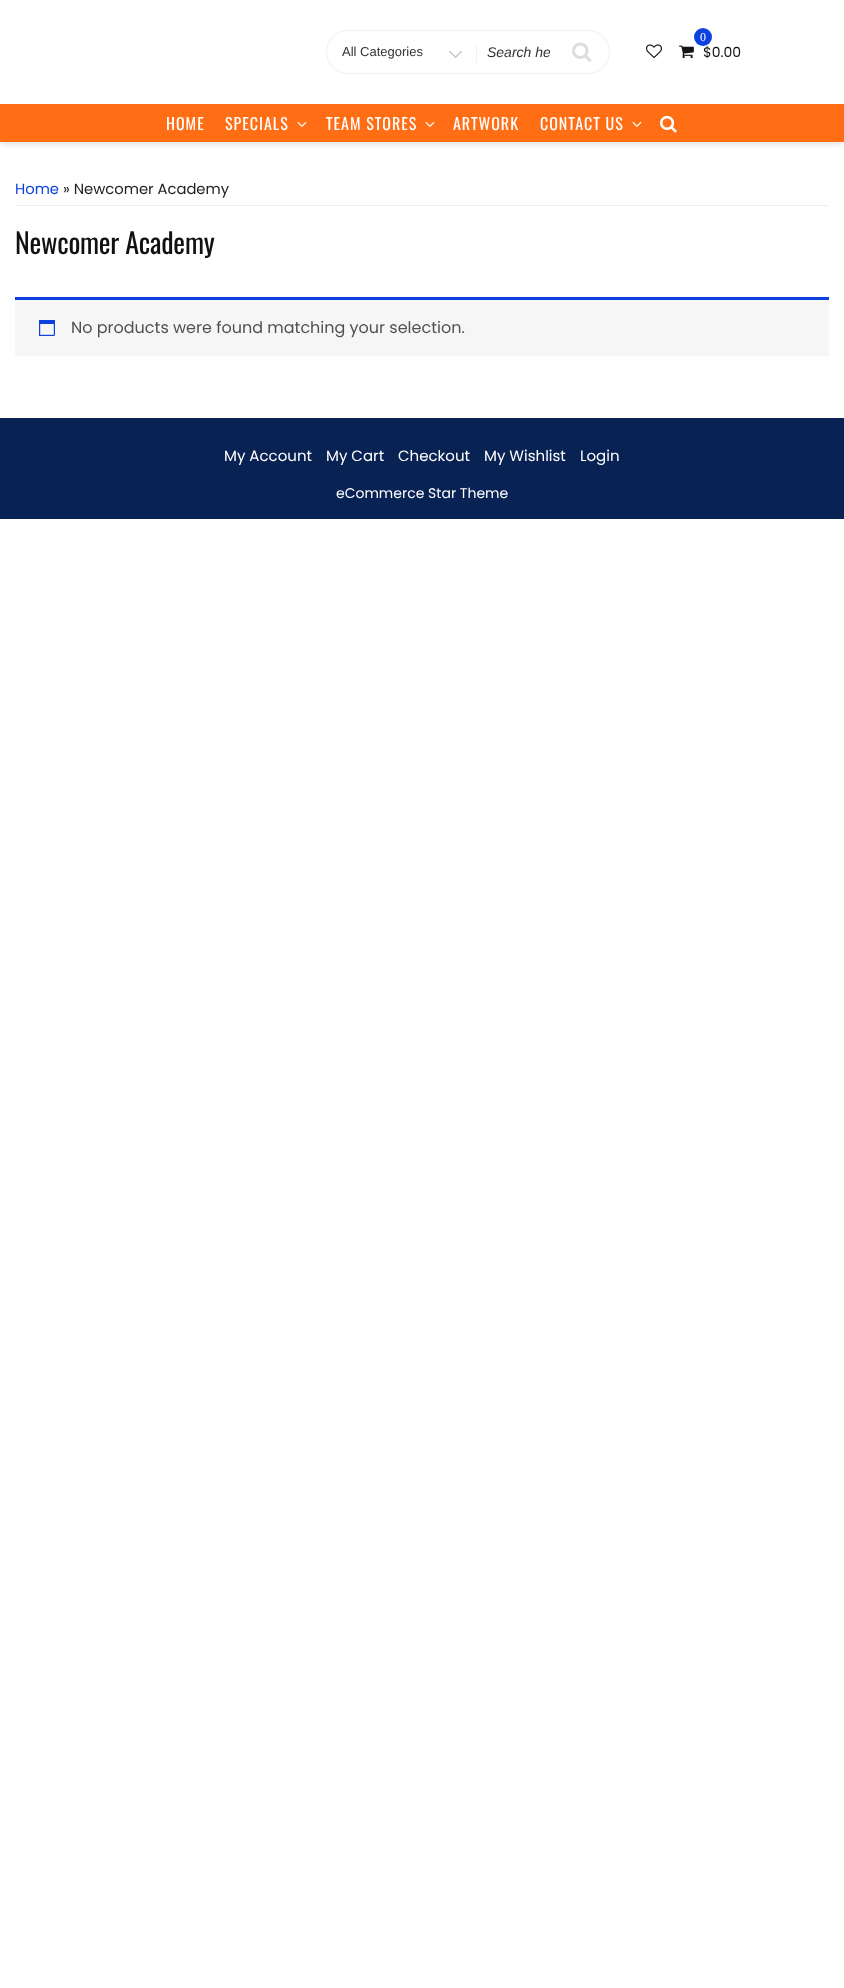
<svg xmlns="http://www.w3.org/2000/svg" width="844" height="1988">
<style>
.a{font:13px Liberation Sans;fill:#333}
.b{font:italic 14px Liberation Sans;fill:#333}
.c{font:12px Liberation Serif;fill:#fff}
.d{font:14px Poppins;fill:#111}
.e{font:16px Oswald;letter-spacing:1px;fill:#fff}
.f{font:14.75px Poppins;fill:#0d42e1}
.g{font:14.75px Poppins;fill:#232222}
.h{font:28px Oswald;letter-spacing:-0.25px;fill:#111}
.i{font:16px Poppins;fill:#515151}
.j{font:15px Poppins;fill:#fff}
.k{font:14px Poppins;fill:#fff}
</style>
<defs>
<clipPath id="clip1"><path d="M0 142h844v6H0z"/></clipPath>
<clipPath id="clip2"><path d="M487 44h63v16H487z"/></clipPath>
</defs>
<rect width="100%" height="100%" fill="#fff"/>
<g clip-path="url(#clip1)">
<path fill="#6a6a6a47" filter="blur(3.5px)" d="M0 1h844v142H0z"/>
</g>
<rect fill="none" stroke="#f0f0f0" x="326.5" y="30.5" width="283" height="43" rx="21.5"/>
<image href="1.png" x="449" y="51" width="13" height="7"/>
<path fill="#f0f0f0" d="M476 45h1v18H476z"/>
<image href="2.png" x="572" y="42" width="20" height="20"/>
<image href="3.png" x="646" y="44" width="16" height="15"/>
<circle fill="#0d42e1" cx="703" cy="37" r="9"/>
<image href="4.png" x="679" y="45" width="15" height="14"/>
<path fill="#ff6d14" d="M0 104h844v38H0z"/>
<image href="5.png" x="297" y="121" width="10" height="6"/>
<image href="5.png" x="425" y="121" width="10" height="6"/>
<image href="5.png" x="632" y="121" width="10" height="6"/>
<image href="6.png" x="660" y="115" width="17" height="18"/>
<path fill="#efefef" d="M15 205h814v1H15z"/>
<path fill="#f7f6f7" d="M15 300h814v56H15z"/>
<path fill="#0d42e1" d="M15 297h814v3H15z"/>
<image href="7.png" x="39" y="320" width="16" height="16"/>
<path fill="#082253" d="M0 418h844v101H0z"/>
<text class="a" x="342" y="56">All Categories</text>
<g clip-path="url(#clip2)">
<text class="b" x="487" y="57">Search he</text>
</g>
<text class="c" x="700" y="41">0</text>
<text class="d" x="703" y="57">$0.00</text>
<text class="e" x="166" y="130">HOME</text>
<text class="e" x="225" y="130">SPECIALS</text>
<text class="e" x="326" y="130">TEAM STORES</text>
<text class="e" x="453" y="130">ARTWORK</text>
<text class="e" x="540" y="130">CONTACT US</text>
<text class="f" x="15" y="194">Home</text>
<text class="g" x="63" y="194">» Newcomer Academy</text>
<text class="h" x="15" y="254">Newcomer Academy</text>
<text class="i" x="71" y="333">No products were found matching your selection.</text>
<text class="j" x="224" y="461">My Account</text>
<text class="j" x="326" y="461">My Cart</text>
<text class="j" x="398" y="461">Checkout</text>
<text class="j" x="484" y="461">My Wishlist</text>
<text class="j" x="580" y="461">Login</text>
<text class="k" x="336" y="498">eCommerce Star Theme</text>
</svg>
